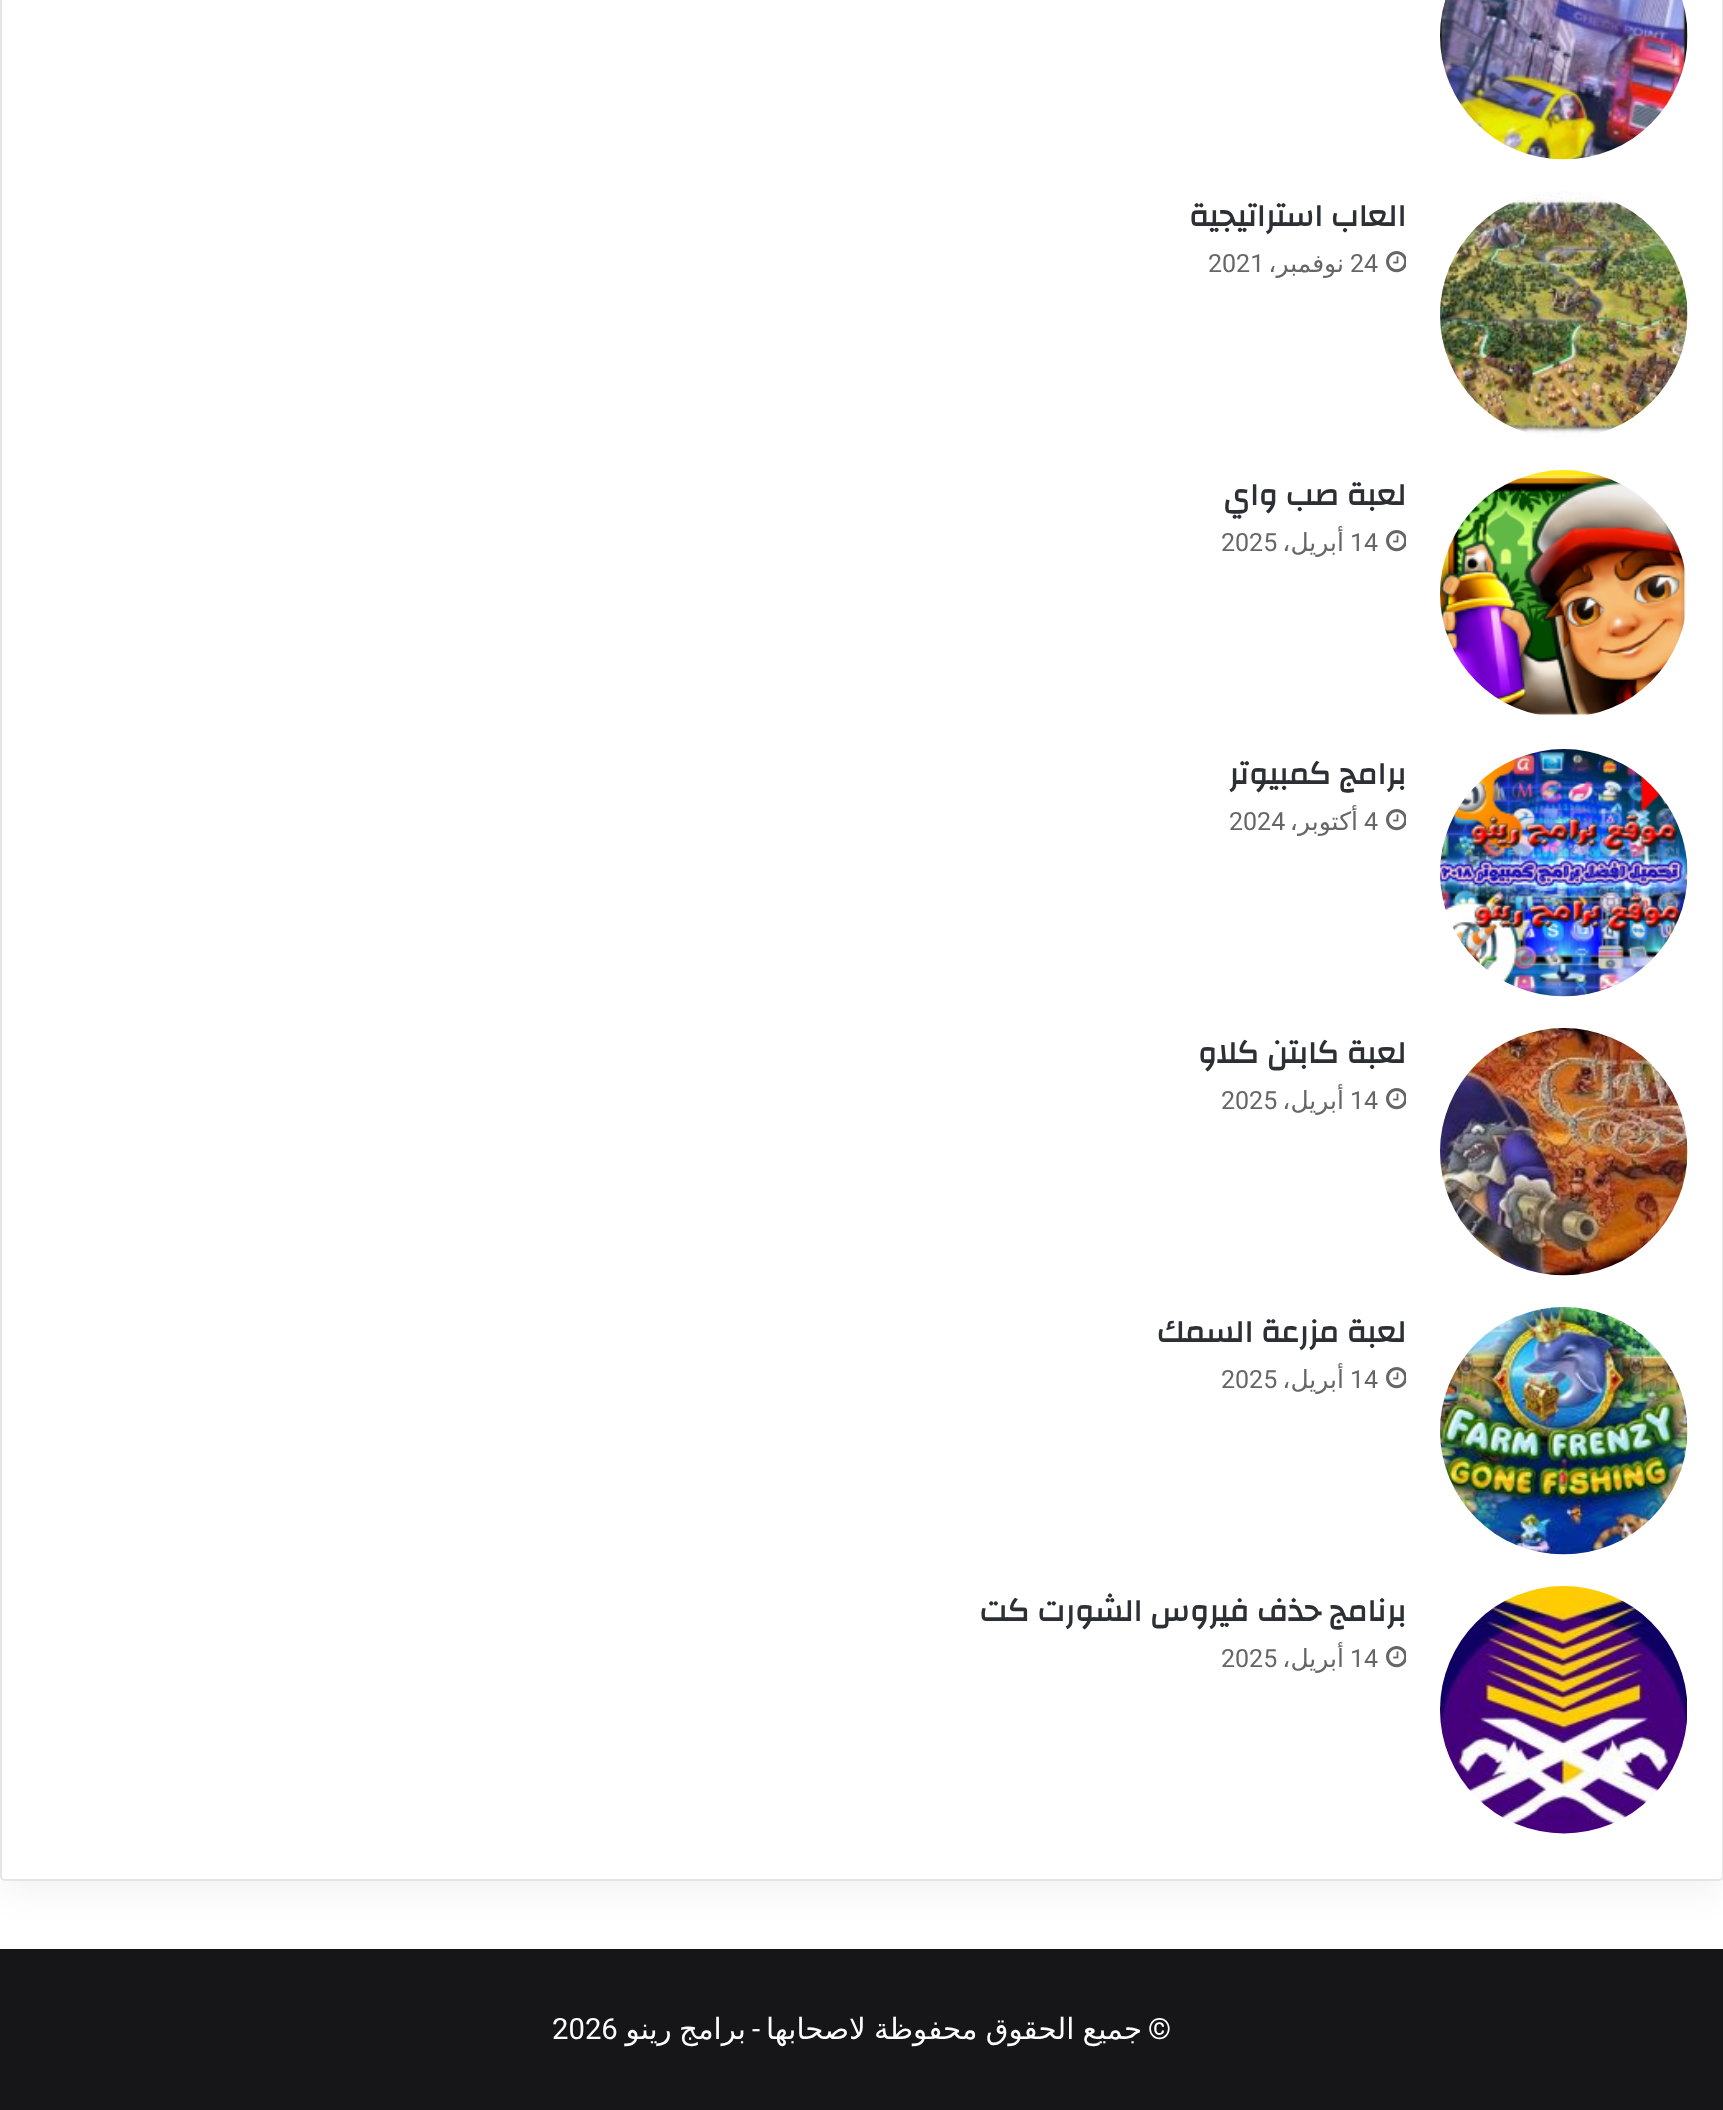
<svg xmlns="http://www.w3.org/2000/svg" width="1723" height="2110">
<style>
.a{font:bold 31.5px Changa;direction:rtl;fill:#2c2f34}
.b{font:25px Roboto;fill:#666}
.c{font:25px DejaVu Sans;direction:rtl;fill:#666}
.d{font:29.25px Roboto;direction:rtl;fill:#fff}
.e{font:29.25px DejaVu Sans;direction:rtl;fill:#fff}
.f{font:29.25px Roboto;fill:#fff}
</style>
<rect width="100%" height="100%" fill="#fff"/>
<rect fill="#0000000d" filter="blur(17px)" y="-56" width="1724" height="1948" rx="5"/>
<rect fill="#fff" stroke="#e5e5e5" stroke-width="2" x="1" y="-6" width="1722" height="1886" rx="4"/>
<image href="1.png" x="1440" y="0" width="248" height="160"/>
<image href="2.png" x="1440" y="191" width="248" height="247"/>
<image href="3.png" x="1386" y="251" width="20" height="22"/>
<image href="4.png" x="1440" y="470" width="247" height="246"/>
<image href="3.png" x="1386" y="530" width="20" height="22"/>
<image href="5.png" x="1440" y="749" width="248" height="248"/>
<image href="3.png" x="1386" y="809" width="20" height="22"/>
<image href="6.png" x="1440" y="1028" width="248" height="248"/>
<image href="3.png" x="1386" y="1088" width="20" height="22"/>
<image href="7.png" x="1440" y="1307" width="248" height="248"/>
<image href="3.png" x="1386" y="1367" width="20" height="22"/>
<image href="8.png" x="1440" y="1586" width="247" height="248"/>
<image href="3.png" x="1386" y="1646" width="20" height="22"/>
<path fill="#161619" d="M0 1949h1723v161H0z"/>
<text class="a" x="1406" y="226">العاب استراتيجية</text>
<text class="b" x="1350" y="272">24</text>
<text class="c" x="1344" y="272">نوفمبر،</text>
<text class="b" x="1208" y="272">2021</text>
<text class="a" x="1406" y="505">لعبة صب واي</text>
<text class="b" x="1350" y="551">14</text>
<text class="c" x="1344" y="551">أبريل،</text>
<text class="b" x="1221" y="551">2025</text>
<text class="a" x="1406" y="784">برامج كمبيوتر</text>
<text class="b" x="1364" y="830">4</text>
<text class="c" x="1358" y="830">أكتوبر،</text>
<text class="b" x="1229" y="830">2024</text>
<text class="a" x="1406" y="1063">لعبة كابتن كلاو</text>
<text class="b" x="1350" y="1109">14</text>
<text class="c" x="1344" y="1109">أبريل،</text>
<text class="b" x="1221" y="1109">2025</text>
<text class="a" x="1406" y="1342">لعبة مزرعة السمك</text>
<text class="b" x="1350" y="1388">14</text>
<text class="c" x="1344" y="1388">أبريل،</text>
<text class="b" x="1221" y="1388">2025</text>
<text class="a" x="1406" y="1621">برنامج حذف فيروس الشورت كت</text>
<text class="b" x="1350" y="1667">14</text>
<text class="c" x="1344" y="1667">أبريل،</text>
<text class="b" x="1221" y="1667">2025</text>
<text class="d" x="1171" y="2039">©</text>
<text class="e" x="1142" y="2039" word-spacing="-1">جميع الحقوق محفوظة لاصحابها</text>
<text class="d" x="760" y="2039">-</text>
<text class="e" x="746" y="2039" word-spacing="-2">برامج رينو</text>
<text class="f" x="552" y="2039">2026</text>
</svg>
